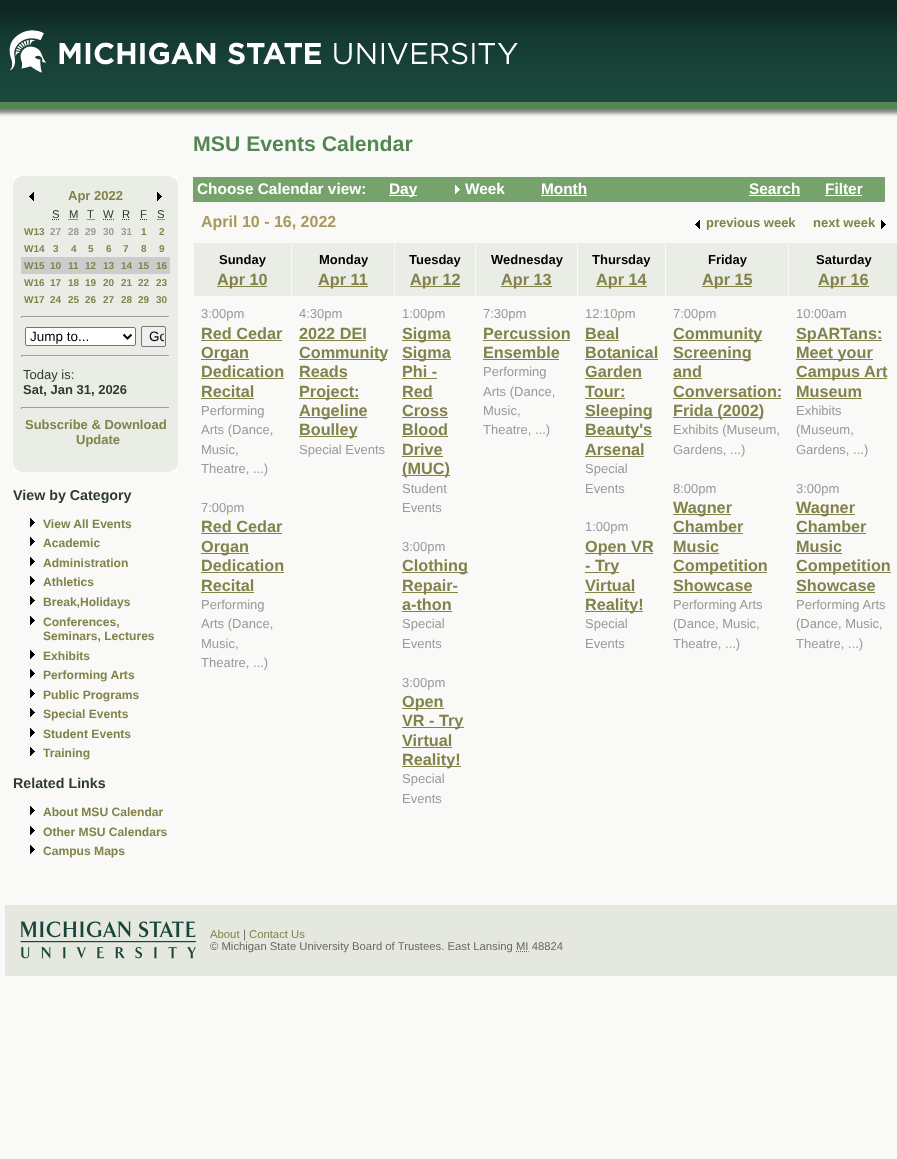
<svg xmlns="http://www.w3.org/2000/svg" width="897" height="1159">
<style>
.a{font:bold 13px Liberation Sans;fill:#82824b}
.b{font:11.3px Liberation Sans;fill:#2d3c2d}
.c{font:bold 10px Liberation Sans;fill:#82824b}
.d{font:bold 10px Liberation Sans;fill:#999}
.e{font:13.5px Liberation Sans;fill:#000}
.f{font:13px Liberation Sans;fill:#2d3c2d}
.g{font:bold 13px Liberation Sans;fill:#2d3c2d}
.h{font:bold 14.25px Liberation Sans;fill:#2d3c2d}
.i{font:bold 12.1px Liberation Sans;fill:#82824b}
.j{font:bold 21.25px Liberation Sans;fill:#548654}
.k{font:bold 15.4px Liberation Sans;fill:#fff}
.l{font:bold 16px Liberation Sans;fill:#aa975b}
.m{font:bold 13px Liberation Sans;fill:#000}
.n{font:bold 16.25px Liberation Sans;fill:#82824b}
.o{font:13px Liberation Sans;fill:#999}
.p{font:11.3px Liberation Sans;fill:#82824b}
.q{font:11.3px Liberation Sans;fill:#686963}
</style>
<defs>
<clipPath id="clip1"><path d="M143 328h21v17H143z"/></clipPath>
</defs>
<rect width="100%" height="100%" fill="#f9f9f7"/>
<image href="1.png" x="0" y="0" width="897" height="117"/>
<image href="2.png" x="9" y="30" width="509" height="43"/>
<path fill="#eaede6" d="M13 176h8v296H13z"/>
<image href="3.png" x="13" y="176" width="7" height="7"/>
<path fill="#eaede6" d="M21 176h149v296H21z"/>
<path fill="#eaede6" d="M170 176h8v296H170z"/>
<image href="4.png" x="171" y="176" width="7" height="7"/>
<image href="5.png" x="29" y="192" width="5" height="9"/>
<image href="6.png" x="157" y="192" width="5" height="9"/>
<path fill="none" stroke="#2d3c2d" stroke-dasharray="1 1" d="M52 219.5h7.5"/>
<path fill="none" stroke="#2d3c2d" stroke-dasharray="1 1" d="M68.5 219.5h9.5"/>
<path fill="none" stroke="#2d3c2d" d="M87.5 219.5h1m1 0h1m1 0h1m1 0h1"/>
<path fill="none" stroke="#2d3c2d" stroke-dasharray="1 1" d="M103 219.5h11"/>
<path fill="none" stroke="#2d3c2d" stroke-dasharray="1 1" d="M122 219.5h8"/>
<path fill="none" stroke="#2d3c2d" d="M140 219.5h1m1 0h1m1 0h1m1 0h1"/>
<path fill="none" stroke="#2d3c2d" stroke-dasharray="1 1" d="M157.5 219.5h7.5"/>
<path fill="#ccc" d="M21 257h149v17H21z"/>
<path fill="#9f9f9f" d="M21 316h149v1H21z"/>
<path fill="#eee" d="M169 316h1v2H169z"/>
<path fill="#eee" d="M21 317h149v1H21z"/>
<path fill="#9f9f9f" d="M21 316h1v2H21z"/>
<rect fill="#fff" stroke="#767676" x="25.5" y="327.5" width="110" height="18" rx="1.5"/>
<path fill="none" stroke="#000" stroke-width="2" d="M123.5 334.5l4 4l4-4"/>
<rect fill="#efefef" stroke="#767676" x="141.5" y="326.5" width="24" height="20" rx="1.5"/>
<path fill="#9f9f9f" d="M21 355h149v1H21z"/>
<path fill="#eee" d="M169 355h1v2H169z"/>
<path fill="#eee" d="M21 356h149v1H21z"/>
<path fill="#9f9f9f" d="M21 355h1v2H21z"/>
<path fill="#9f9f9f" d="M21 407h149v1H21z"/>
<path fill="#eee" d="M169 407h1v2H169z"/>
<path fill="#eee" d="M21 408h149v1H21z"/>
<path fill="#9f9f9f" d="M21 407h1v2H21z"/>
<image href="7.png" x="13" y="465" width="7" height="7"/>
<image href="8.png" x="171" y="465" width="7" height="7"/>
<image href="9.png" x="30" y="518" width="5" height="9"/>
<image href="9.png" x="30" y="537" width="5" height="9"/>
<image href="9.png" x="30" y="557" width="5" height="9"/>
<image href="9.png" x="30" y="576" width="5" height="9"/>
<image href="9.png" x="30" y="596" width="5" height="9"/>
<image href="9.png" x="30" y="616" width="5" height="9"/>
<image href="9.png" x="30" y="650" width="5" height="9"/>
<image href="9.png" x="30" y="669" width="5" height="9"/>
<image href="9.png" x="30" y="689" width="5" height="9"/>
<image href="9.png" x="30" y="708" width="5" height="9"/>
<image href="9.png" x="30" y="728" width="5" height="9"/>
<image href="9.png" x="30" y="747" width="5" height="9"/>
<image href="9.png" x="30" y="806" width="5" height="9"/>
<image href="9.png" x="30" y="826" width="5" height="9"/>
<image href="9.png" x="30" y="845" width="5" height="9"/>
<path fill="#75a36b" d="M193 177h692v25H193z"/>
<path fill="#fff" d="M389 195h28v1H389z"/>
<image href="10.png" x="455" y="185" width="5" height="9"/>
<path fill="#fff" d="M541 195h46v1H541z"/>
<path fill="#fff" d="M749 195h51v1H749z"/>
<path fill="#fff" d="M825 195h37v1H825z"/>
<image href="11.png" x="695" y="220" width="5" height="9"/>
<image href="9.png" x="881" y="220" width="5" height="9"/>
<path fill="#eaede6" d="M194 243h97v53H194z"/>
<path fill="#82824b" d="M217 286h50v1H217z"/>
<path fill="#eaede6" d="M292 243h102v53H292z"/>
<path fill="#82824b" d="M318 286h50v1H318z"/>
<path fill="#eaede6" d="M395 243h80v53H395z"/>
<path fill="#82824b" d="M410 286h50v1H410z"/>
<path fill="#eaede6" d="M476 243h101v53H476z"/>
<path fill="#82824b" d="M501 286h51v1H501z"/>
<path fill="#eaede6" d="M578 243h87v53H578z"/>
<path fill="#82824b" d="M596 286h51v1H596z"/>
<path fill="#eaede6" d="M666 243h122v53H666z"/>
<path fill="#82824b" d="M702 286h50v1H702z"/>
<path fill="#eaede6" d="M789 243h108v53H789z"/>
<path fill="#82824b" d="M818 286h51v1H818z"/>
<path fill="#82824b" d="M201 340h81v1H201z"/>
<path fill="#82824b" d="M201 359h48v1H201z"/>
<path fill="#82824b" d="M201 378h83v1H201z"/>
<path fill="#82824b" d="M201 398h53v1H201z"/>
<path fill="#82824b" d="M201 533h81v1H201z"/>
<path fill="#82824b" d="M201 553h48v1H201z"/>
<path fill="#82824b" d="M201 572h83v1H201z"/>
<path fill="#82824b" d="M201 592h53v1H201z"/>
<path fill="#82824b" d="M299 340h67v1H299z"/>
<path fill="#82824b" d="M299 359h88v1H299z"/>
<path fill="#82824b" d="M299 378h48v1H299z"/>
<path fill="#82824b" d="M299 398h60v1H299z"/>
<path fill="#82824b" d="M299 417h68v1H299z"/>
<path fill="#82824b" d="M299 436h58v1H299z"/>
<path fill="#82824b" d="M402 340h49v1H402z"/>
<path fill="#82824b" d="M402 359h49v1H402z"/>
<path fill="#82824b" d="M402 378h35v1H402z"/>
<path fill="#82824b" d="M402 398h31v1H402z"/>
<path fill="#82824b" d="M402 417h46v1H402z"/>
<path fill="#82824b" d="M402 436h46v1H402z"/>
<path fill="#82824b" d="M402 456h41v1H402z"/>
<path fill="#82824b" d="M402 475h48v1H402z"/>
<path fill="#82824b" d="M402 572h66v1H402z"/>
<path fill="#82824b" d="M402 592h56v1H402z"/>
<path fill="#82824b" d="M402 611h50v1H402z"/>
<path fill="#82824b" d="M402 708h42v1H402z"/>
<path fill="#82824b" d="M402 727h62v1H402z"/>
<path fill="#82824b" d="M402 747h50v1H402z"/>
<path fill="#82824b" d="M402 766h59v1H402z"/>
<path fill="#82824b" d="M483 340h87v1H483z"/>
<path fill="#82824b" d="M483 359h76v1H483z"/>
<path fill="#82824b" d="M585 340h34v1H585z"/>
<path fill="#82824b" d="M585 359h73v1H585z"/>
<path fill="#82824b" d="M585 378h57v1H585z"/>
<path fill="#82824b" d="M585 398h40v1H585z"/>
<path fill="#82824b" d="M585 417h67v1H585z"/>
<path fill="#82824b" d="M585 436h67v1H585z"/>
<path fill="#82824b" d="M585 456h59v1H585z"/>
<path fill="#82824b" d="M585 553h68v1H585z"/>
<path fill="#82824b" d="M585 572h34v1H585z"/>
<path fill="#82824b" d="M585 592h50v1H585z"/>
<path fill="#82824b" d="M585 611h58v1H585z"/>
<path fill="#82824b" d="M673 340h89v1H673z"/>
<path fill="#82824b" d="M673 359h78v1H673z"/>
<path fill="#82824b" d="M673 378h29v1H673z"/>
<path fill="#82824b" d="M673 398h108v1H673z"/>
<path fill="#82824b" d="M673 417h90v1H673z"/>
<path fill="#82824b" d="M673 514h58v1H673z"/>
<path fill="#82824b" d="M673 533h70v1H673z"/>
<path fill="#82824b" d="M673 553h46v1H673z"/>
<path fill="#82824b" d="M673 572h94v1H673z"/>
<path fill="#82824b" d="M673 592h79v1H673z"/>
<path fill="#82824b" d="M796 340h86v1H796z"/>
<path fill="#82824b" d="M796 359h77v1H796z"/>
<path fill="#82824b" d="M796 378h91v1H796z"/>
<path fill="#82824b" d="M796 398h66v1H796z"/>
<path fill="#82824b" d="M796 514h59v1H796z"/>
<path fill="#82824b" d="M796 533h70v1H796z"/>
<path fill="#82824b" d="M796 553h46v1H796z"/>
<path fill="#82824b" d="M796 572h95v1H796z"/>
<path fill="#82824b" d="M796 592h79v1H796z"/>
<path fill="#e4e8de" d="M5 905h892v71H5z"/>
<image href="12.png" x="20" y="921" width="176" height="38"/>
<path fill="none" stroke="#686963" stroke-dasharray="1 1" d="M516 951.5h12.5"/>
<text class="a" x="68" y="200">Apr 2022</text>
<text class="b" x="52" y="218">S</text>
<text class="b" x="69" y="218">M</text>
<text class="b" x="87" y="218">T</text>
<text class="b" x="103" y="218">W</text>
<text class="b" x="122" y="218">R</text>
<text class="b" x="140" y="218">F</text>
<text class="b" x="157" y="218">S</text>
<text class="c" x="24" y="235">W13</text>
<text class="d" x="50" y="235">27</text>
<text class="d" x="68" y="235">28</text>
<text class="d" x="85" y="235">29</text>
<text class="d" x="103" y="235">30</text>
<text class="d" x="121" y="235">31</text>
<text class="c" x="141" y="235">1</text>
<text class="c" x="159" y="235">2</text>
<text class="c" x="24" y="252">W14</text>
<text class="c" x="53" y="252">3</text>
<text class="c" x="71" y="252">4</text>
<text class="c" x="88" y="252">5</text>
<text class="c" x="106" y="252">6</text>
<text class="c" x="123" y="252">7</text>
<text class="c" x="141" y="252">8</text>
<text class="c" x="159" y="252">9</text>
<text class="c" x="24" y="269">W15</text>
<text class="c" x="50" y="269">10</text>
<text class="c" x="68" y="269">11</text>
<text class="c" x="85" y="269">12</text>
<text class="c" x="103" y="269">13</text>
<text class="c" x="121" y="269">14</text>
<text class="c" x="138" y="269">15</text>
<text class="c" x="156" y="269">16</text>
<text class="c" x="24" y="286">W16</text>
<text class="c" x="50" y="286">17</text>
<text class="c" x="68" y="286">18</text>
<text class="c" x="85" y="286">19</text>
<text class="c" x="103" y="286">20</text>
<text class="c" x="121" y="286">21</text>
<text class="c" x="138" y="286">22</text>
<text class="c" x="156" y="286">23</text>
<text class="c" x="24" y="303">W17</text>
<text class="c" x="50" y="303">24</text>
<text class="c" x="68" y="303">25</text>
<text class="c" x="85" y="303">26</text>
<text class="c" x="103" y="303">27</text>
<text class="c" x="121" y="303">28</text>
<text class="c" x="138" y="303">29</text>
<text class="c" x="156" y="303">30</text>
<text class="e" x="30" y="341">Jump to...</text>
<g clip-path="url(#clip1)">
<text class="e" x="149" y="341">Go</text>
</g>
<text class="f" x="23" y="379">Today is:</text>
<text class="g" x="23" y="394">Sat, Jan 31, 2026</text>
<text class="a" x="25" y="429">Subscribe &amp; Download</text>
<text class="a" x="76" y="444">Update</text>
<text class="h" x="13" y="500">View by Category</text>
<text class="i" x="43" y="528">View All Events</text>
<text class="i" x="43" y="547">Academic</text>
<text class="i" x="43" y="567">Administration</text>
<text class="i" x="43" y="586">Athletics</text>
<text class="i" x="43" y="606">Break,Holidays</text>
<text class="i" x="43" y="626">Conferences,</text>
<text class="i" x="43" y="640">Seminars, Lectures</text>
<text class="i" x="43" y="660">Exhibits</text>
<text class="i" x="43" y="679">Performing Arts</text>
<text class="i" x="43" y="699">Public Programs</text>
<text class="i" x="43" y="718">Special Events</text>
<text class="i" x="43" y="738">Student Events</text>
<text class="i" x="43" y="757">Training</text>
<text class="h" x="13" y="788">Related Links</text>
<text class="i" x="43" y="816">About MSU Calendar</text>
<text class="i" x="43" y="836">Other MSU Calendars</text>
<text class="i" x="43" y="855">Campus Maps</text>
<text class="j" x="193" y="151">MSU Events Calendar</text>
<text class="k" x="197" y="194">Choose Calendar view:</text>
<text class="k" x="389" y="194">Day</text>
<text class="k" x="465" y="194">Week</text>
<text class="k" x="541" y="194">Month</text>
<text class="k" x="749" y="194">Search</text>
<text class="k" x="825" y="194">Filter</text>
<text class="l" x="201" y="227">April 10 - 16, 2022</text>
<text class="a" x="706" y="227">previous week</text>
<text class="a" x="813" y="227">next week</text>
<text class="m" x="219" y="264">Sunday</text>
<text class="n" x="217" y="285">Apr 10</text>
<text class="m" x="319" y="264">Monday</text>
<text class="n" x="318" y="285">Apr 11</text>
<text class="m" x="409" y="264">Tuesday</text>
<text class="n" x="410" y="285">Apr 12</text>
<text class="m" x="491" y="264">Wednesday</text>
<text class="n" x="501" y="285">Apr 13</text>
<text class="m" x="592" y="264">Thursday</text>
<text class="n" x="596" y="285">Apr 14</text>
<text class="m" x="708" y="264">Friday</text>
<text class="n" x="702" y="285">Apr 15</text>
<text class="m" x="816" y="264">Saturday</text>
<text class="n" x="818" y="285">Apr 16</text>
<text class="o" x="201" y="318">3:00pm</text>
<text class="n" x="201" y="339">Red Cedar</text>
<text class="n" x="201" y="358">Organ</text>
<text class="n" x="201" y="377">Dedication</text>
<text class="n" x="201" y="397">Recital</text>
<text class="o" x="201" y="415">Performing</text>
<text class="o" x="201" y="434">Arts (Dance,</text>
<text class="o" x="201" y="454">Music,</text>
<text class="o" x="201" y="473">Theatre, ...)</text>
<text class="o" x="201" y="512">7:00pm</text>
<text class="n" x="201" y="532">Red Cedar</text>
<text class="n" x="201" y="552">Organ</text>
<text class="n" x="201" y="571">Dedication</text>
<text class="n" x="201" y="591">Recital</text>
<text class="o" x="201" y="609">Performing</text>
<text class="o" x="201" y="628">Arts (Dance,</text>
<text class="o" x="201" y="648">Music,</text>
<text class="o" x="201" y="667">Theatre, ...)</text>
<text class="o" x="299" y="318">4:30pm</text>
<text class="n" x="299" y="339">2022 DEI</text>
<text class="n" x="299" y="358">Community</text>
<text class="n" x="299" y="377">Reads</text>
<text class="n" x="299" y="397">Project:</text>
<text class="n" x="299" y="416">Angeline</text>
<text class="n" x="299" y="435">Boulley</text>
<text class="o" x="299" y="454">Special Events</text>
<text class="o" x="402" y="318">1:00pm</text>
<text class="n" x="402" y="339">Sigma</text>
<text class="n" x="402" y="358">Sigma</text>
<text class="n" x="402" y="377">Phi -</text>
<text class="n" x="402" y="397">Red</text>
<text class="n" x="402" y="416">Cross</text>
<text class="n" x="402" y="435">Blood</text>
<text class="n" x="402" y="455">Drive</text>
<text class="n" x="402" y="474">(MUC)</text>
<text class="o" x="402" y="493">Student</text>
<text class="o" x="402" y="512">Events</text>
<text class="o" x="402" y="551">3:00pm</text>
<text class="n" x="402" y="571">Clothing</text>
<text class="n" x="402" y="591">Repair-</text>
<text class="n" x="402" y="610">a-thon</text>
<text class="o" x="402" y="628">Special</text>
<text class="o" x="402" y="648">Events</text>
<text class="o" x="402" y="687">3:00pm</text>
<text class="n" x="402" y="707">Open</text>
<text class="n" x="402" y="726">VR - Try</text>
<text class="n" x="402" y="746">Virtual</text>
<text class="n" x="402" y="765">Reality!</text>
<text class="o" x="402" y="783">Special</text>
<text class="o" x="402" y="803">Events</text>
<text class="o" x="483" y="318">7:30pm</text>
<text class="n" x="483" y="339">Percussion</text>
<text class="n" x="483" y="358">Ensemble</text>
<text class="o" x="483" y="376">Performing</text>
<text class="o" x="483" y="396">Arts (Dance,</text>
<text class="o" x="483" y="415">Music,</text>
<text class="o" x="483" y="434">Theatre, ...)</text>
<text class="o" x="585" y="318">12:10pm</text>
<text class="n" x="585" y="339">Beal</text>
<text class="n" x="585" y="358">Botanical</text>
<text class="n" x="585" y="377">Garden</text>
<text class="n" x="585" y="397">Tour:</text>
<text class="n" x="585" y="416">Sleeping</text>
<text class="n" x="585" y="435">Beauty's</text>
<text class="n" x="585" y="455">Arsenal</text>
<text class="o" x="585" y="473">Special</text>
<text class="o" x="585" y="493">Events</text>
<text class="o" x="585" y="531">1:00pm</text>
<text class="n" x="585" y="552">Open VR</text>
<text class="n" x="585" y="571">- Try</text>
<text class="n" x="585" y="591">Virtual</text>
<text class="n" x="585" y="610">Reality!</text>
<text class="o" x="585" y="628">Special</text>
<text class="o" x="585" y="648">Events</text>
<text class="o" x="673" y="318">7:00pm</text>
<text class="n" x="673" y="339">Community</text>
<text class="n" x="673" y="358">Screening</text>
<text class="n" x="673" y="377">and</text>
<text class="n" x="673" y="397">Conversation:</text>
<text class="n" x="673" y="416">Frida (2002)</text>
<text class="o" x="673" y="434">Exhibits (Museum,</text>
<text class="o" x="673" y="454">Gardens, ...)</text>
<text class="o" x="673" y="493">8:00pm</text>
<text class="n" x="673" y="513">Wagner</text>
<text class="n" x="673" y="532">Chamber</text>
<text class="n" x="673" y="552">Music</text>
<text class="n" x="673" y="571">Competition</text>
<text class="n" x="673" y="591">Showcase</text>
<text class="o" x="673" y="609">Performing Arts</text>
<text class="o" x="673" y="628">(Dance, Music,</text>
<text class="o" x="673" y="648">Theatre, ...)</text>
<text class="o" x="796" y="318">10:00am</text>
<text class="n" x="796" y="339">SpARTans:</text>
<text class="n" x="796" y="358">Meet your</text>
<text class="n" x="796" y="377">Campus Art</text>
<text class="n" x="796" y="397">Museum</text>
<text class="o" x="796" y="415">Exhibits</text>
<text class="o" x="796" y="434">(Museum,</text>
<text class="o" x="796" y="454">Gardens, ...)</text>
<text class="o" x="796" y="493">3:00pm</text>
<text class="n" x="796" y="513">Wagner</text>
<text class="n" x="796" y="532">Chamber</text>
<text class="n" x="796" y="552">Music</text>
<text class="n" x="796" y="571">Competition</text>
<text class="n" x="796" y="591">Showcase</text>
<text class="o" x="796" y="609">Performing Arts</text>
<text class="o" x="796" y="628">(Dance, Music,</text>
<text class="o" x="796" y="648">Theatre, ...)</text>
<text class="p" x="210" y="938">About</text>
<text class="q" x="243" y="938">|</text>
<text class="p" x="249" y="938">Contact Us</text>
<text class="q" x="210" y="950">© Michigan State University Board of Trustees. East Lansing MI 48824</text>
</svg>
